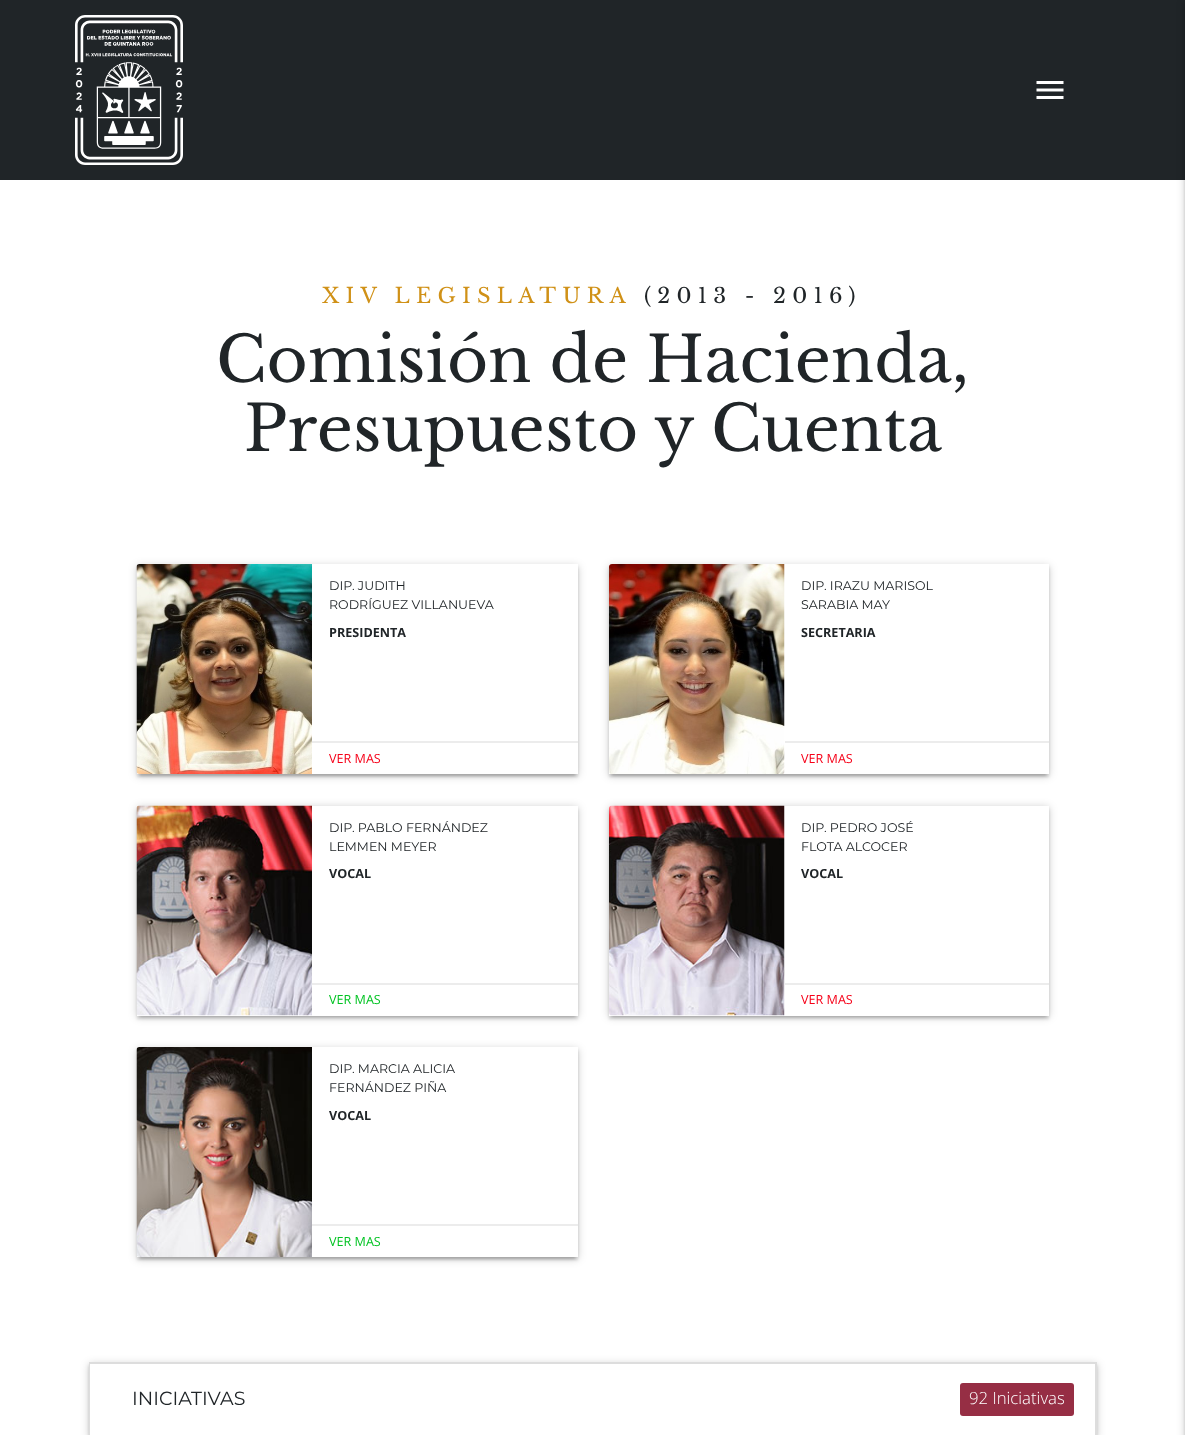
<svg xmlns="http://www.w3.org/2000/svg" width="1185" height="1435">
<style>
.a{font:21px Libre Baskerville;letter-spacing:6.25px;fill:#d09117}
.b{font:21px Libre Baskerville;letter-spacing:6.25px;fill:#202528}
.c{font:63px Libre Baskerville;fill:#202528}
.d{font:12.6px Montserrat;fill:#202528}
.e{font:bold 12.6px Open Sans;fill:#202528}
.f{font:12.6px Open Sans;fill:#f60018}
.g{font:12.6px Open Sans;fill:#00c322}
.h{font:19px Montserrat;fill:#202528}
.i{font:300 16.75px Open Sans;fill:#fff}
</style>
<rect width="100%" height="100%" fill="#fff"/>
<path fill="#202528" d="M0 0h1185v180H0z"/>
<image href="1.png" x="75" y="15" width="108" height="150"/>
<image href="2.png" x="1036" y="81" width="28" height="18"/>
<path fill="#00000033" filter="blur(4px)" d="M1185 2h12v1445H1185z"/>
<path fill="#00000024" filter="blur(1.5px)" d="M1185 3h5v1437H1185z"/>
<path fill="#00000033" filter="blur(4px)" d="M137 566h441v210H137z"/>
<path fill="#0000001f" filter="blur(1px)" d="M140 572h435v204H140z"/>
<path fill="#00000024" filter="blur(1.5px)" d="M137 567h441v210H137z"/>
<path fill="#fff" d="M137 564h441v210H137z"/>
<image href="3.png" x="136" y="564" width="176" height="210"/>
<path fill="#ececec" d="M312 741h266v2H312z"/>
<path fill="#00000033" filter="blur(4px)" d="M609 566h440v210H609z"/>
<path fill="#0000001f" filter="blur(1px)" d="M612 572h434v204H612z"/>
<path fill="#00000024" filter="blur(1.5px)" d="M609 567h440v210H609z"/>
<path fill="#fff" d="M609 564h440v210H609z"/>
<image href="4.png" x="609" y="564" width="176" height="210"/>
<path fill="#ececec" d="M785 741h264v2H785z"/>
<path fill="#00000033" filter="blur(4px)" d="M137 807h441v210H137z"/>
<path fill="#0000001f" filter="blur(1px)" d="M140 813h435v204H140z"/>
<path fill="#00000024" filter="blur(1.5px)" d="M137 809h441v210H137z"/>
<path fill="#fff" d="M137 806h441v210H137z"/>
<image href="5.png" x="136" y="805" width="176" height="211"/>
<path fill="#ececec" d="M312 983h266v2H312z"/>
<path fill="#00000033" filter="blur(4px)" d="M609 807h440v210H609z"/>
<path fill="#0000001f" filter="blur(1px)" d="M612 813h434v204H612z"/>
<path fill="#00000024" filter="blur(1.5px)" d="M609 809h440v210H609z"/>
<path fill="#fff" d="M609 806h440v210H609z"/>
<image href="6.png" x="609" y="805" width="176" height="211"/>
<path fill="#ececec" d="M785 983h264v2H785z"/>
<path fill="#00000033" filter="blur(4px)" d="M137 1049h441v210H137z"/>
<path fill="#0000001f" filter="blur(1px)" d="M140 1055h435v204H140z"/>
<path fill="#00000024" filter="blur(1.5px)" d="M137 1050h441v210H137z"/>
<path fill="#fff" d="M137 1047h441v210H137z"/>
<image href="7.png" x="136" y="1047" width="176" height="210"/>
<path fill="#ececec" d="M312 1224h266v2H312z"/>
<path fill="#00000033" filter="blur(4px)" d="M89 1364h1008v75H89z"/>
<path fill="#00000024" filter="blur(1.5px)" d="M89 1365h1008v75H89z"/>
<path fill="#ddd" d="M89 1362h1008v2H89z"/>
<path fill="#ddd" d="M1095 1362h2v73H1095z"/>
<path fill="#ddd" d="M89 1362h2v73H89z"/>
<path fill="#fff" d="M90 1364h1005v71H90z"/>
<rect fill="#962e44" x="960" y="1383" width="114" height="33" rx="3"/>
<text class="a" x="322" y="303">XIV LEGISLATURA</text>
<text class="b" x="644" y="303">(2013 - 2016)</text>
<text class="c" x="216" y="382">Comisión de Hacienda,</text>
<text class="c" x="244" y="451">Presupuesto y Cuenta</text>
<text class="d" x="329" y="590">DIP. JUDITH</text>
<text class="d" x="329" y="609">RODRÍGUEZ VILLANUEVA</text>
<text class="e" x="329" y="637">PRESIDENTA</text>
<text class="f" x="329" y="763">VER MAS</text>
<text class="d" x="801" y="590">DIP. IRAZU MARISOL</text>
<text class="d" x="801" y="609">SARABIA MAY</text>
<text class="e" x="801" y="637">SECRETARIA</text>
<text class="f" x="801" y="763">VER MAS</text>
<text class="d" x="329" y="832">DIP. PABLO FERNÁNDEZ</text>
<text class="d" x="329" y="851">LEMMEN MEYER</text>
<text class="e" x="329" y="878">VOCAL</text>
<text class="g" x="329" y="1004">VER MAS</text>
<text class="d" x="801" y="832">DIP. PEDRO JOSÉ</text>
<text class="d" x="801" y="851">FLOTA ALCOCER</text>
<text class="e" x="801" y="878">VOCAL</text>
<text class="f" x="801" y="1004">VER MAS</text>
<text class="d" x="329" y="1073">DIP. MARCIA ALICIA</text>
<text class="d" x="329" y="1092">FERNÁNDEZ PIÑA</text>
<text class="e" x="329" y="1120">VOCAL</text>
<text class="g" x="329" y="1246">VER MAS</text>
<text class="h" x="132" y="1405">INICIATIVAS</text>
<text class="i" x="969" y="1404">92 Iniciativas</text>
</svg>
